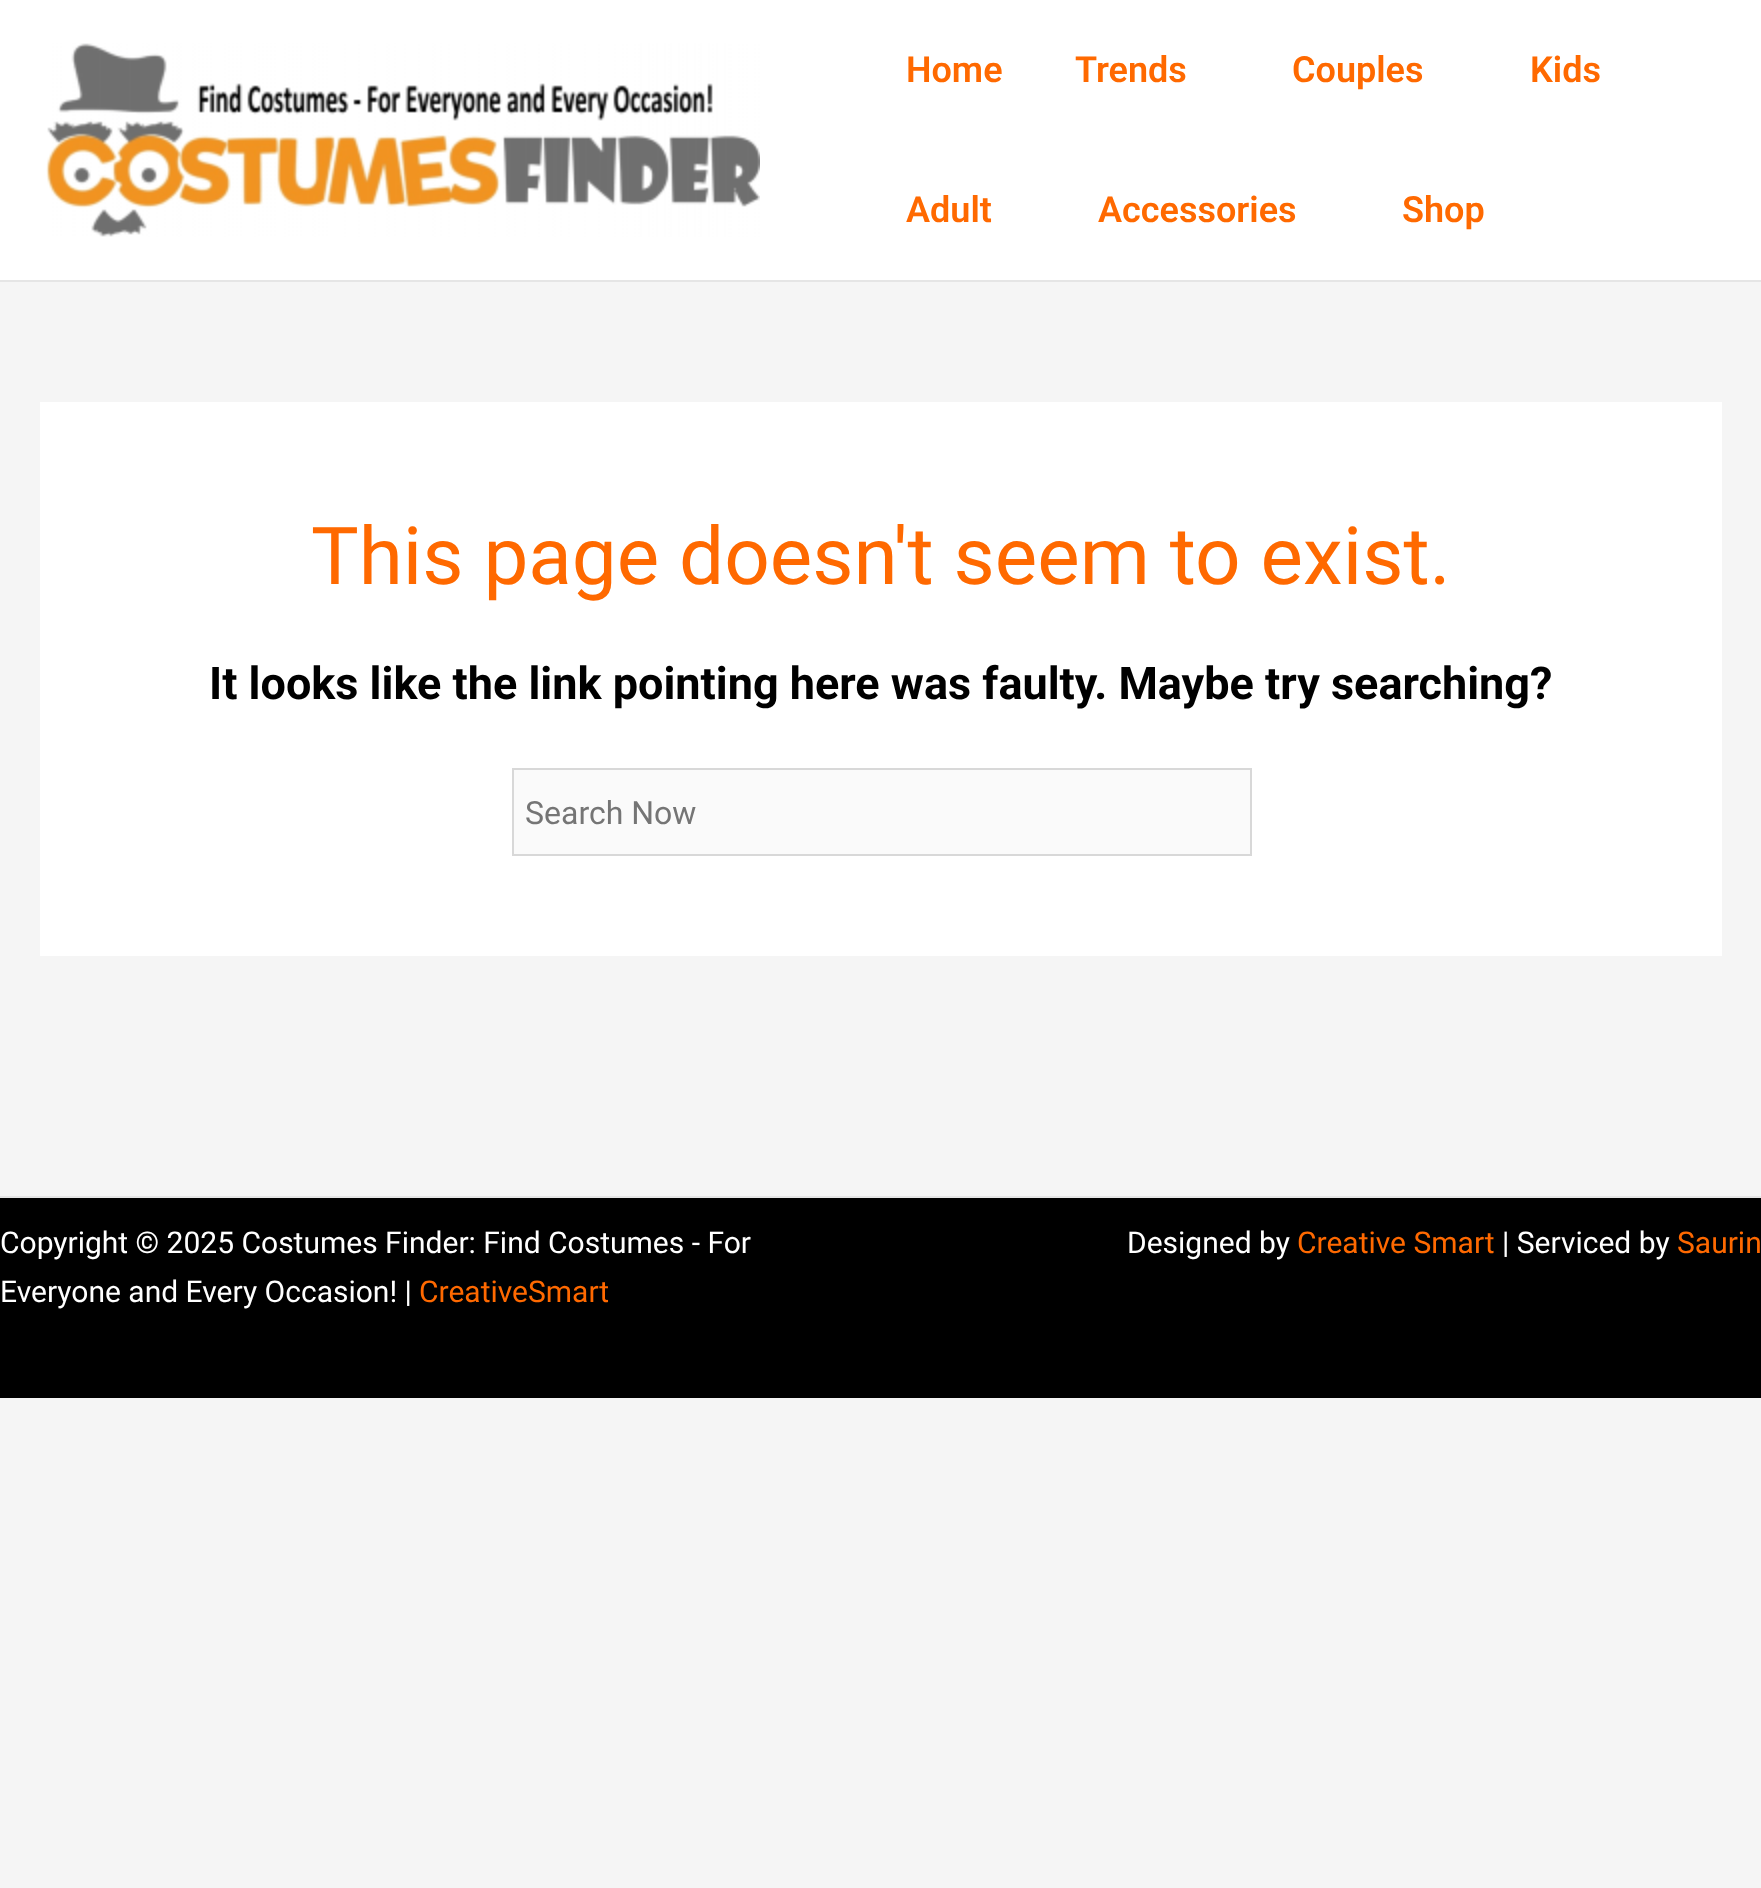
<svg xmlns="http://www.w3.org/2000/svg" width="1761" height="1888">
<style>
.a{font:600 36px Roboto;fill:#ff6900}
.b{font:80px Roboto;fill:#ff6900}
.c{font:bold 45px Roboto;fill:#000}
.d{font:32px Roboto;fill:#757575}
.e{font:30px Roboto;fill:#fff}
.f{font:30px Roboto;fill:#ff6900}
</style>
<rect width="100%" height="100%" fill="#f5f5f5"/>
<path fill="#fff" d="M0 0h1761v280H0z"/>
<path fill="#e5e5e5" d="M0 280h1761v2H0z"/>
<image href="1.png" x="46" y="43" width="714" height="194"/>
<path fill="#fff" d="M40 402h1682v554H40z"/>
<path fill="#fafafa" stroke="#d8d8d8" stroke-width="2" d="M513 769h738v86H513z"/>
<path fill="#000" d="M0 1198h1761v200H0z"/>
<path fill="#e5e5e5" d="M0 1196h1761v2H0z"/>
<text class="a" x="906" y="82">Home</text>
<text class="a" x="1075" y="82">Trends</text>
<text class="a" x="1292" y="82">Couples</text>
<text class="a" x="1530" y="82">Kids</text>
<text class="a" x="906" y="222">Adult</text>
<text class="a" x="1098" y="222">Accessories</text>
<text class="a" x="1402" y="222">Shop</text>
<text class="b" x="311" y="584">This page doesn't seem to exist.</text>
<text class="c" x="209" y="699">It looks like the link pointing here was faulty. Maybe try searching?</text>
<text class="d" x="525" y="824">Search Now</text>
<text class="e" x="0" y="1253">Copyright © 2025 Costumes Finder: Find Costumes - For</text>
<text class="e" x="0" y="1302">Everyone and Every Occasion! |</text>
<text class="f" x="419" y="1302">CreativeSmart</text>
<text class="e" x="1127" y="1253">Designed by</text>
<text class="f" x="1297" y="1253">Creative Smart</text>
<text class="e" x="1502" y="1253">| Serviced by</text>
<text class="f" x="1677" y="1253">Saurin</text>
</svg>
